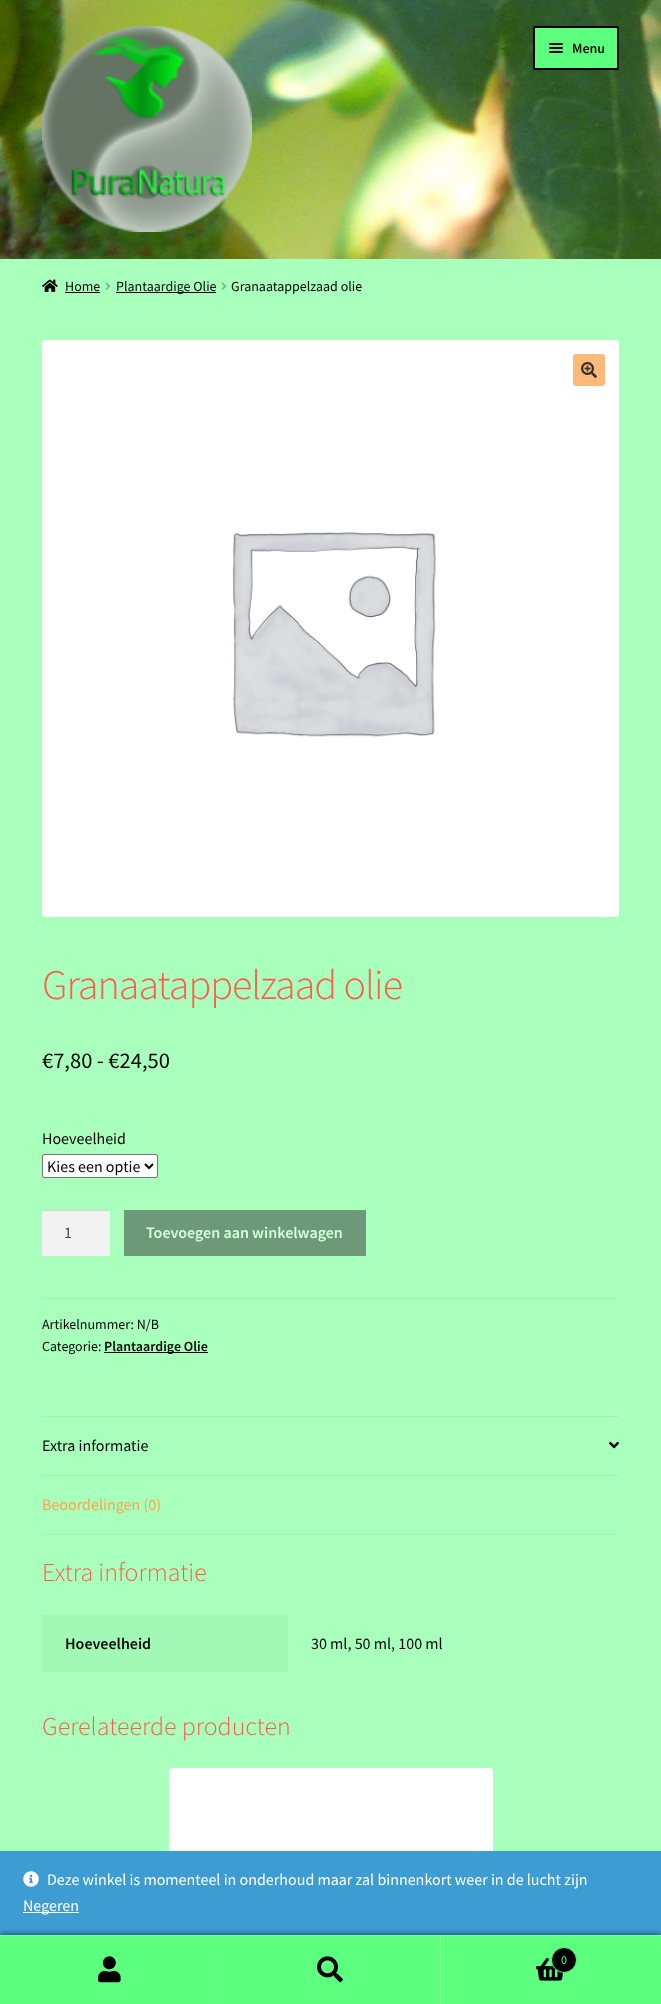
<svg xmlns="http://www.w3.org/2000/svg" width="661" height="2004">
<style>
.a{font:600 14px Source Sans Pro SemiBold;fill:#050505}
.b{font:14px Source Sans Pro;fill:#050505}
.c{font:300 42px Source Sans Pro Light;letter-spacing:-1px;fill:#ff5d4c}
.d{font:22.5px Source Sans Pro;fill:#050505}
.e{font:16px Source Sans Pro;fill:#050505}
.f{font:16px Source Sans Pro;fill:#43454b}
.g{font:600 16px Source Sans Pro SemiBold;fill:#d4ffde}
.h{font:16px Source Sans Pro;fill:#ffa34c}
.i{font:300 25.9px Source Sans Pro Light;fill:#ff5d4c}
.j{font:600 16px Source Sans Pro SemiBold;fill:#050505}
.k{font:12px Source Sans Pro;fill:#5dff7e}
.l{font:16px Source Sans Pro;fill:#fff}
</style>
<rect width="100%" height="100%" fill="#a9ffbc"/>
<image href="1.png" x="0" y="0" width="661" height="259"/>
<image href="2.png" x="42" y="26" width="210" height="206"/>
<rect fill="#5dff7e" stroke="#000" stroke-width="2" x="534" y="27" width="84" height="42" rx="1"/>
<rect fill="#000" x="549" y="43" width="14" height="2" rx="1"/>
<rect fill="#000" x="549" y="47" width="14" height="2" rx="1"/>
<rect fill="#000" x="549" y="51" width="14" height="2" rx="1"/>
<image href="3.png" x="42" y="279" width="16" height="13"/>
<path fill="#050505" d="M65 292h35v1H65z"/>
<image href="4.png" x="105" y="282" width="6" height="8"/>
<path fill="#050505" d="M116 292h100v1H116z"/>
<image href="4.png" x="221" y="282" width="6" height="8"/>
<image href="5.png" x="42" y="340" width="577" height="577"/>
<rect fill="#ffba79" x="573" y="354" width="32" height="32" rx="3"/>
<image href="6.png" x="581" y="362" width="16" height="16"/>
<rect fill="#fff" stroke="#767676" x="42.5" y="1154.5" width="115" height="23" rx="1.5"/>
<path fill="none" stroke="#000" stroke-width="2" d="M145 1164l4 4l4-4"/>
<path fill="#f2f2f2" d="M42 1211h68v45H42z"/>
<path fill="#d4d4d4" d="M42 1210h68v1H42z"/>
<path fill="#6e9978" d="M124 1210h242v46H124z"/>
<path fill="#a1f2b3" d="M42 1298h577v1H42z"/>
<path fill="#050505" d="M104 1352h104v1H104z"/>
<path fill="#a1f2b3" d="M42 1416h577v1H42z"/>
<path fill="#a1f2b3" d="M42 1475h577v1H42z"/>
<image href="7.png" x="609" y="1441" width="10" height="8"/>
<path fill="#a1f2b3" d="M42 1534h577v1H42z"/>
<path fill="#a2f8b5" d="M42 1615h246v57H42z"/>
<image href="8.png" x="169" y="1768" width="324" height="83"/>
<path fill="#3d9cd2" d="M0 1851h661v84H0z"/>
<path fill="#000000b3" filter="blur(3px)" d="M0 1935h661v69H0z"/>
<path fill="#7dff98" d="M0 1935h661v1H0z"/>
<path fill="#5dff7e" d="M0 1936h219v68H0z"/>
<path fill="#7dff98" d="M219 1936h1v68H219z"/>
<image href="9.png" x="98" y="1956" width="23" height="27"/>
<path fill="#5dff7e" d="M220 1936h220v68H220z"/>
<path fill="#7dff98" d="M440 1936h1v68H440z"/>
<image href="10.png" x="317" y="1956" width="26" height="27"/>
<path fill="#5dff7e" d="M441 1936h220v68H441z"/>
<image href="11.png" x="536" y="1958" width="28" height="23"/>
<circle fill="#000" stroke="#5dff7e" cx="564" cy="1960" r="12.5"/>
<image href="12.png" x="23" y="1871" width="16" height="16"/>
<path fill="#fff" d="M23 1912h56v1H23z"/>
<text class="a" x="572" y="53">Menu</text>
<text class="b" x="65" y="291">Home</text>
<text class="b" x="116" y="291">Plantaardige Olie</text>
<text class="b" x="231" y="291">Granaatappelzaad olie</text>
<text class="c" x="42" y="999">Granaatappelzaad olie</text>
<text class="d" x="42" y="1068">€7,80 - €24,50</text>
<text class="e" x="42" y="1144">Hoeveelheid</text>
<text class="e" x="47" y="1172">Kies een optie</text>
<text class="f" x="64" y="1238">1</text>
<text class="g" x="146" y="1238">Toevoegen aan winkelwagen</text>
<text class="b" x="42" y="1329">Artikelnummer: N/B</text>
<text class="b" x="42" y="1351">Categorie:</text>
<text class="a" x="104" y="1351">Plantaardige Olie</text>
<text class="e" x="42" y="1451">Extra informatie</text>
<text class="h" x="42" y="1510">Beoordelingen (0)</text>
<text class="i" x="42" y="1581">Extra informatie</text>
<text class="j" x="65" y="1649">Hoeveelheid</text>
<text class="e" x="311" y="1649">30 ml, 50 ml, 100 ml</text>
<text class="i" x="42" y="1735">Gerelateerde producten</text>
<text class="k" x="561" y="1964">0</text>
<text class="l" x="47" y="1885">Deze winkel is momenteel in onderhoud maar zal binnenkort weer in de lucht zijn</text>
<text class="l" x="23" y="1911">Negeren</text>
</svg>
